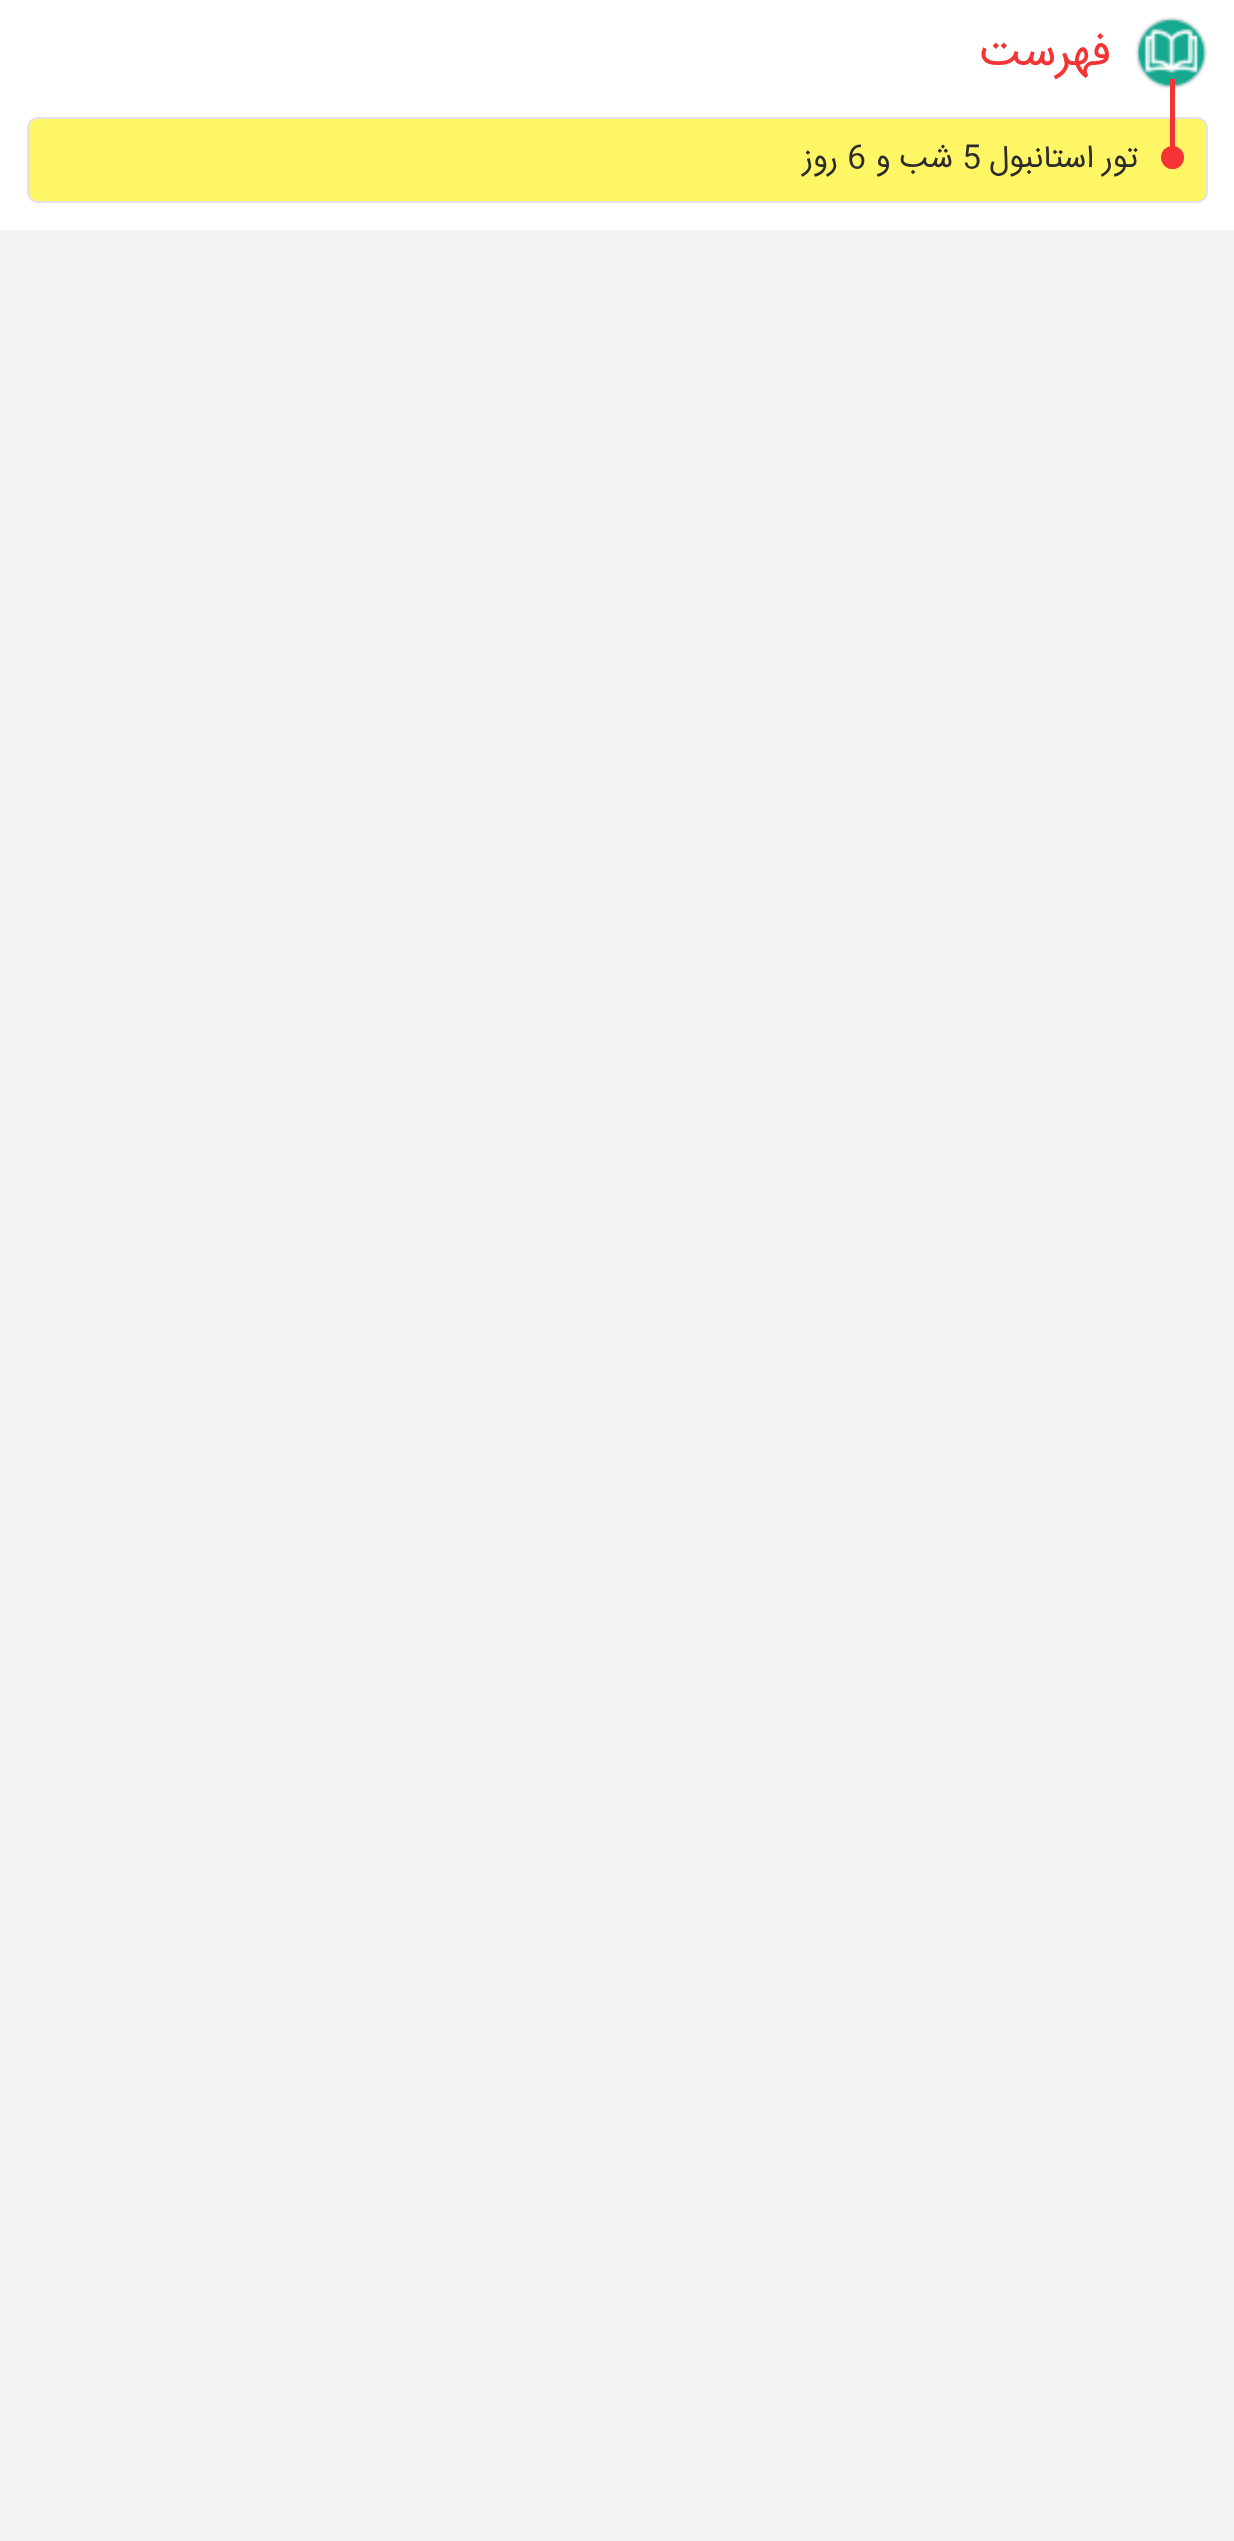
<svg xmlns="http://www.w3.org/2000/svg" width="1234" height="2541">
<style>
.a{font:45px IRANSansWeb;direction:rtl;fill:#f43434}
.b{font:31.5px IRANSansWeb;direction:rtl;fill:#2c2c2c}
.c{font:31.5px IRANSansWeb;fill:#2c2c2c}
</style>
<rect width="100%" height="100%" fill="#f2f2f2"/>
<path fill="#fff" d="M0 0h1234v230H0z"/>
<image href="1.png" x="1135" y="16" width="73" height="74"/>
<rect fill="#fff666" stroke="#e3e3e3" stroke-width="2" x="28" y="118" width="1179" height="84" rx="10"/>
<path fill="#f43434" d="M1170 79h5v68H1170z"/>
<circle fill="#f43434" cx="1172.5" cy="157.5" r="11.5"/>
<text class="a" x="1111" y="65">فهرست</text>
<text class="b" x="1138" y="167">تور استانبول</text>
<text class="c" x="962" y="167">5</text>
<text class="b" x="953" y="167">شب و</text>
<text class="c" x="847" y="167">6</text>
<text class="b" x="838" y="167">روز</text>
</svg>
